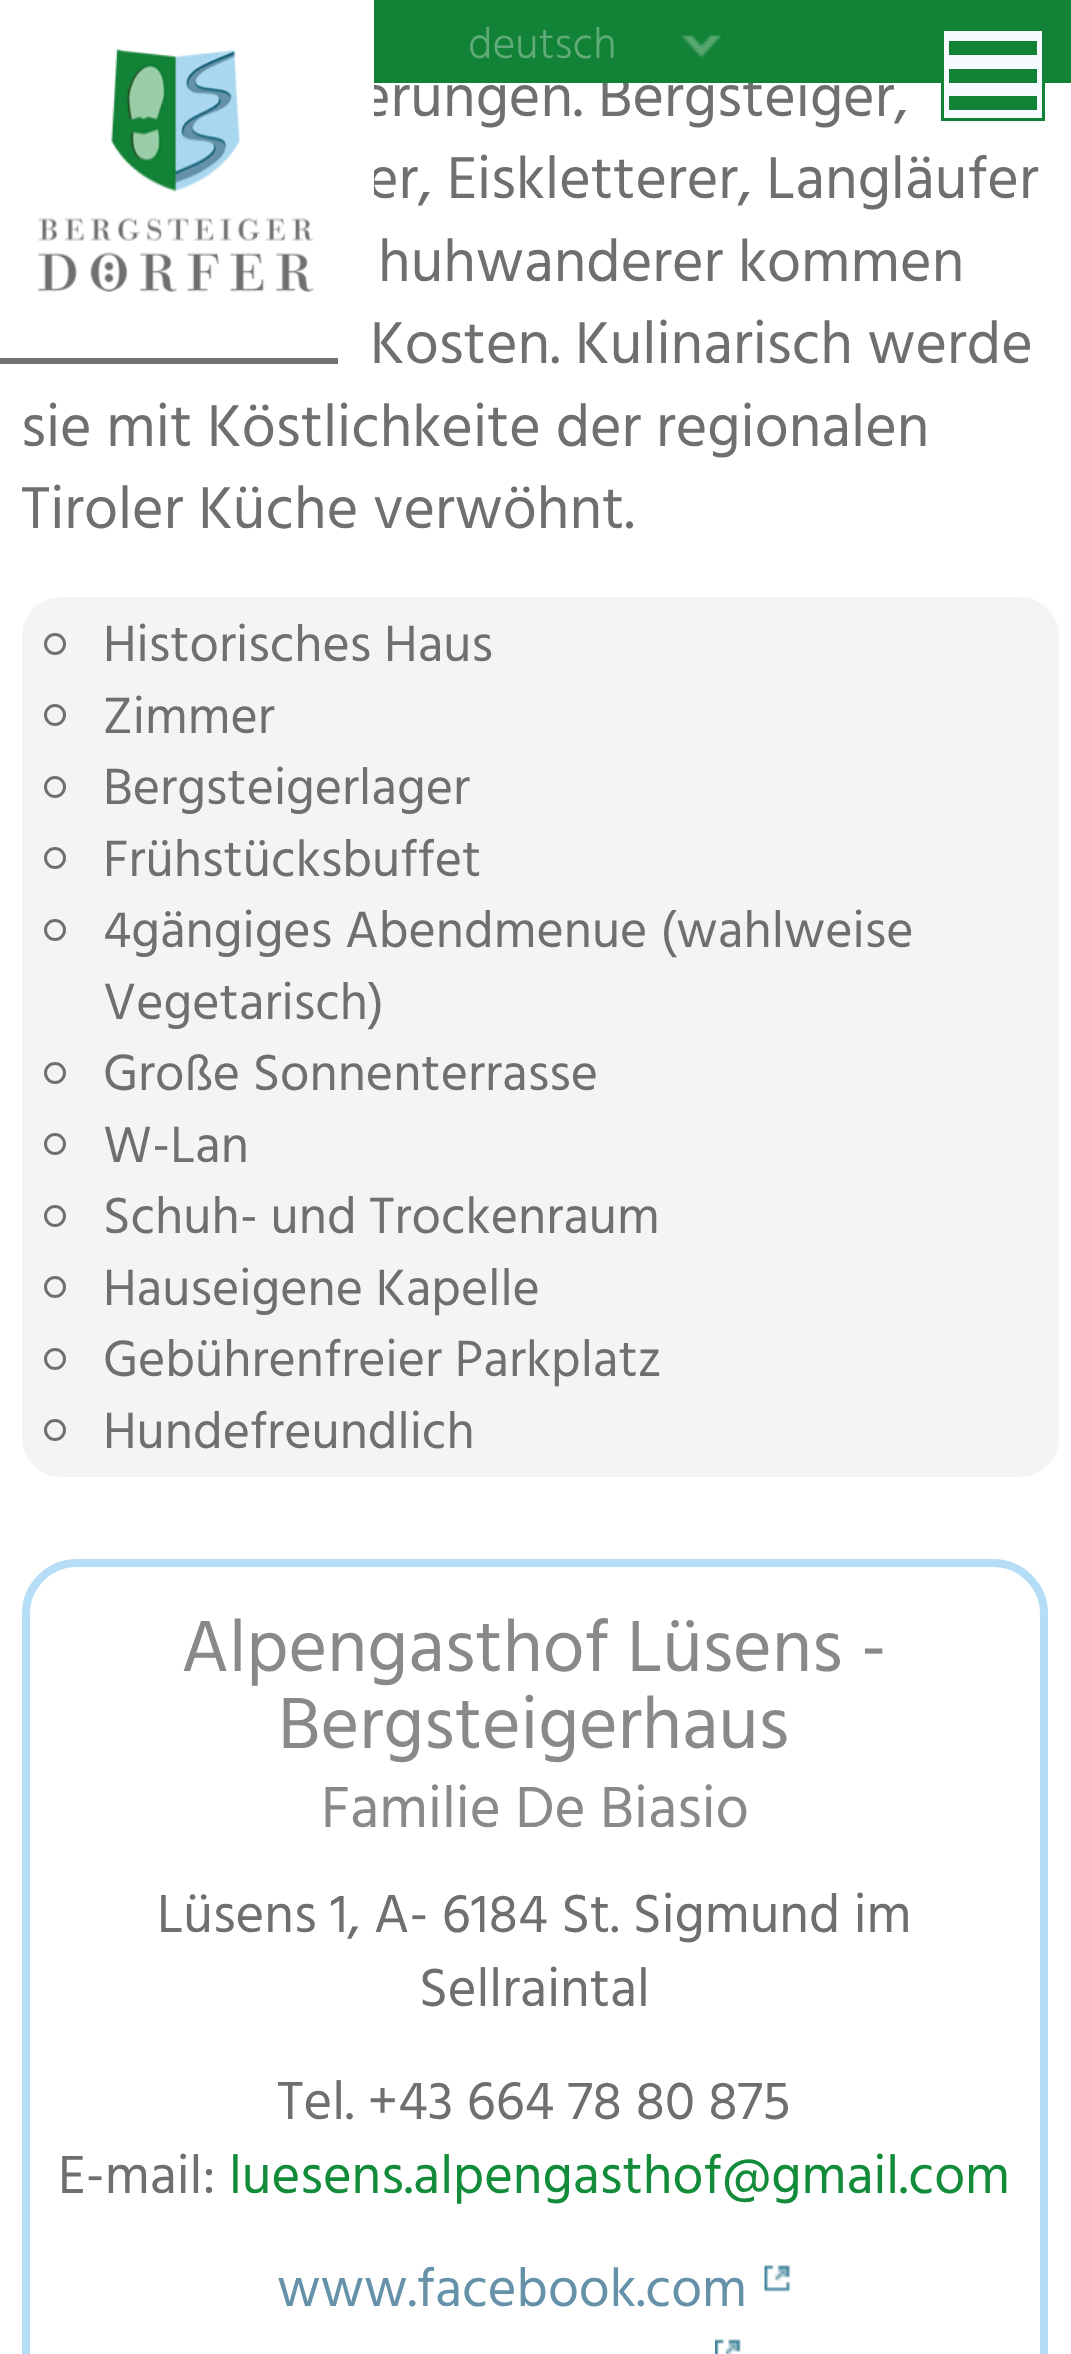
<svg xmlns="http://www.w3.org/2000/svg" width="1071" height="2354">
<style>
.a{font:60.5px Hind Guntur;fill:#6f6f6f}
.b{font:300 44px Hind Guntur;fill:#60ab78}
.c{font:52.25px Hind Guntur;fill:#6f6f6f}
.d{font:74.25px Hind Guntur;fill:#898989}
.e{font:59.5px Hind Guntur;fill:#898989}
.f{font:55px Hind Guntur;fill:#6f6f6f}
.g{font:55px Hind Guntur;fill:#138c3a}
.h{font:55px Hind Guntur;fill:#6692a9}
</style>
<rect width="100%" height="100%" fill="#fff"/>
<rect fill="#f4f4f4" x="22" y="597" width="1037" height="880" rx="39"/>
<circle fill="none" stroke="#6f6f6f" stroke-width="3" cx="55" cy="644" r="9.5"/>
<circle fill="none" stroke="#6f6f6f" stroke-width="3" cx="55" cy="715" r="9.5"/>
<circle fill="none" stroke="#6f6f6f" stroke-width="3" cx="55" cy="787" r="9.5"/>
<circle fill="none" stroke="#6f6f6f" stroke-width="3" cx="55" cy="858" r="9.5"/>
<circle fill="none" stroke="#6f6f6f" stroke-width="3" cx="55" cy="930" r="9.5"/>
<circle fill="none" stroke="#6f6f6f" stroke-width="3" cx="55" cy="1073" r="9.5"/>
<circle fill="none" stroke="#6f6f6f" stroke-width="3" cx="55" cy="1144" r="9.5"/>
<circle fill="none" stroke="#6f6f6f" stroke-width="3" cx="55" cy="1216" r="9.5"/>
<circle fill="none" stroke="#6f6f6f" stroke-width="3" cx="55" cy="1287" r="9.5"/>
<circle fill="none" stroke="#6f6f6f" stroke-width="3" cx="55" cy="1359" r="9.5"/>
<circle fill="none" stroke="#6f6f6f" stroke-width="3" cx="55" cy="1430" r="9.5"/>
<rect fill="none" stroke="#b5ddf6" stroke-width="8" x="26" y="1563" width="1018" height="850" rx="51"/>
<image href="3.png" x="764" y="2265" width="27" height="27"/>
<image href="4.png" x="715" y="2339" width="26" height="15"/>
<text class="a" x="359" y="116">erungen. Bergsteiger,</text>
<path fill="#128236" d="M374 0h697v83H374z"/>
<path fill="#f5fbfe" stroke="#128236" stroke-width="3" d="M942.5 29.5h101v90H942.5z"/>
<path fill="#128236" d="M949 96h88v14H949z"/>
<path fill="#128236" d="M949 69h88v14H949z"/>
<path fill="#128236" d="M949 41h88v14H949z"/>
<text class="b" x="468" y="58">deutsch</text>
<image href="2.png" x="682" y="35" width="39" height="23"/>
<text class="a" x="367" y="198">er, Eiskletterer, Langläufer</text>
<path fill="#fff" d="M-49 0h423v291c0 40-32 72-72 72h-279c-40 0-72-32-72-72z"/>
<image href="1.png" x="38" y="49" width="276" height="243"/>
<path fill="#717171" d="M0 358h338v6H0z"/>
<text class="a" x="378" y="281">huhwanderer kommen</text>
<text class="a" x="370" y="363">Kosten. Kulinarisch werde</text>
<text class="a" x="21" y="446">sie mit Köstlichkeite der regionalen</text>
<text class="a" x="21" y="528">Tiroler Küche verwöhnt.</text>
<text class="c" x="103" y="661">Historisches Haus</text>
<text class="c" x="103" y="733">Zimmer</text>
<text class="c" x="103" y="804">Bergsteigerlager</text>
<text class="c" x="103" y="876">Frühstücksbuffet</text>
<text class="c" x="103" y="947">4gängiges Abendmenue (wahlweise</text>
<text class="c" x="103" y="1019">Vegetarisch)</text>
<text class="c" x="103" y="1090">Große Sonnenterrasse</text>
<text class="c" x="103" y="1162">W-Lan</text>
<text class="c" x="103" y="1233">Schuh- und Trockenraum</text>
<text class="c" x="103" y="1305">Hauseigene Kapelle</text>
<text class="c" x="103" y="1376">Gebührenfreier Parkplatz</text>
<text class="c" x="103" y="1448">Hundefreundlich</text>
<text class="d" x="181" y="1671">Alpengasthof Lüsens -</text>
<text class="d" x="278" y="1748">Bergsteigerhaus</text>
<text class="e" x="321" y="1827">Familie De Biasio</text>
<text class="f" x="157" y="1932">Lüsens 1, A- 6184 St. Sigmund im</text>
<text class="f" x="419" y="2006">Sellraintal</text>
<text class="f" x="277" y="2119">Tel. +43 664 78 80 875</text>
<text class="f" x="58" y="2193">E-mail:</text>
<text class="g" x="229" y="2193">luesens.alpengasthof@gmail.com</text>
<text class="h" x="277" y="2306">www.facebook.com</text>
</svg>
